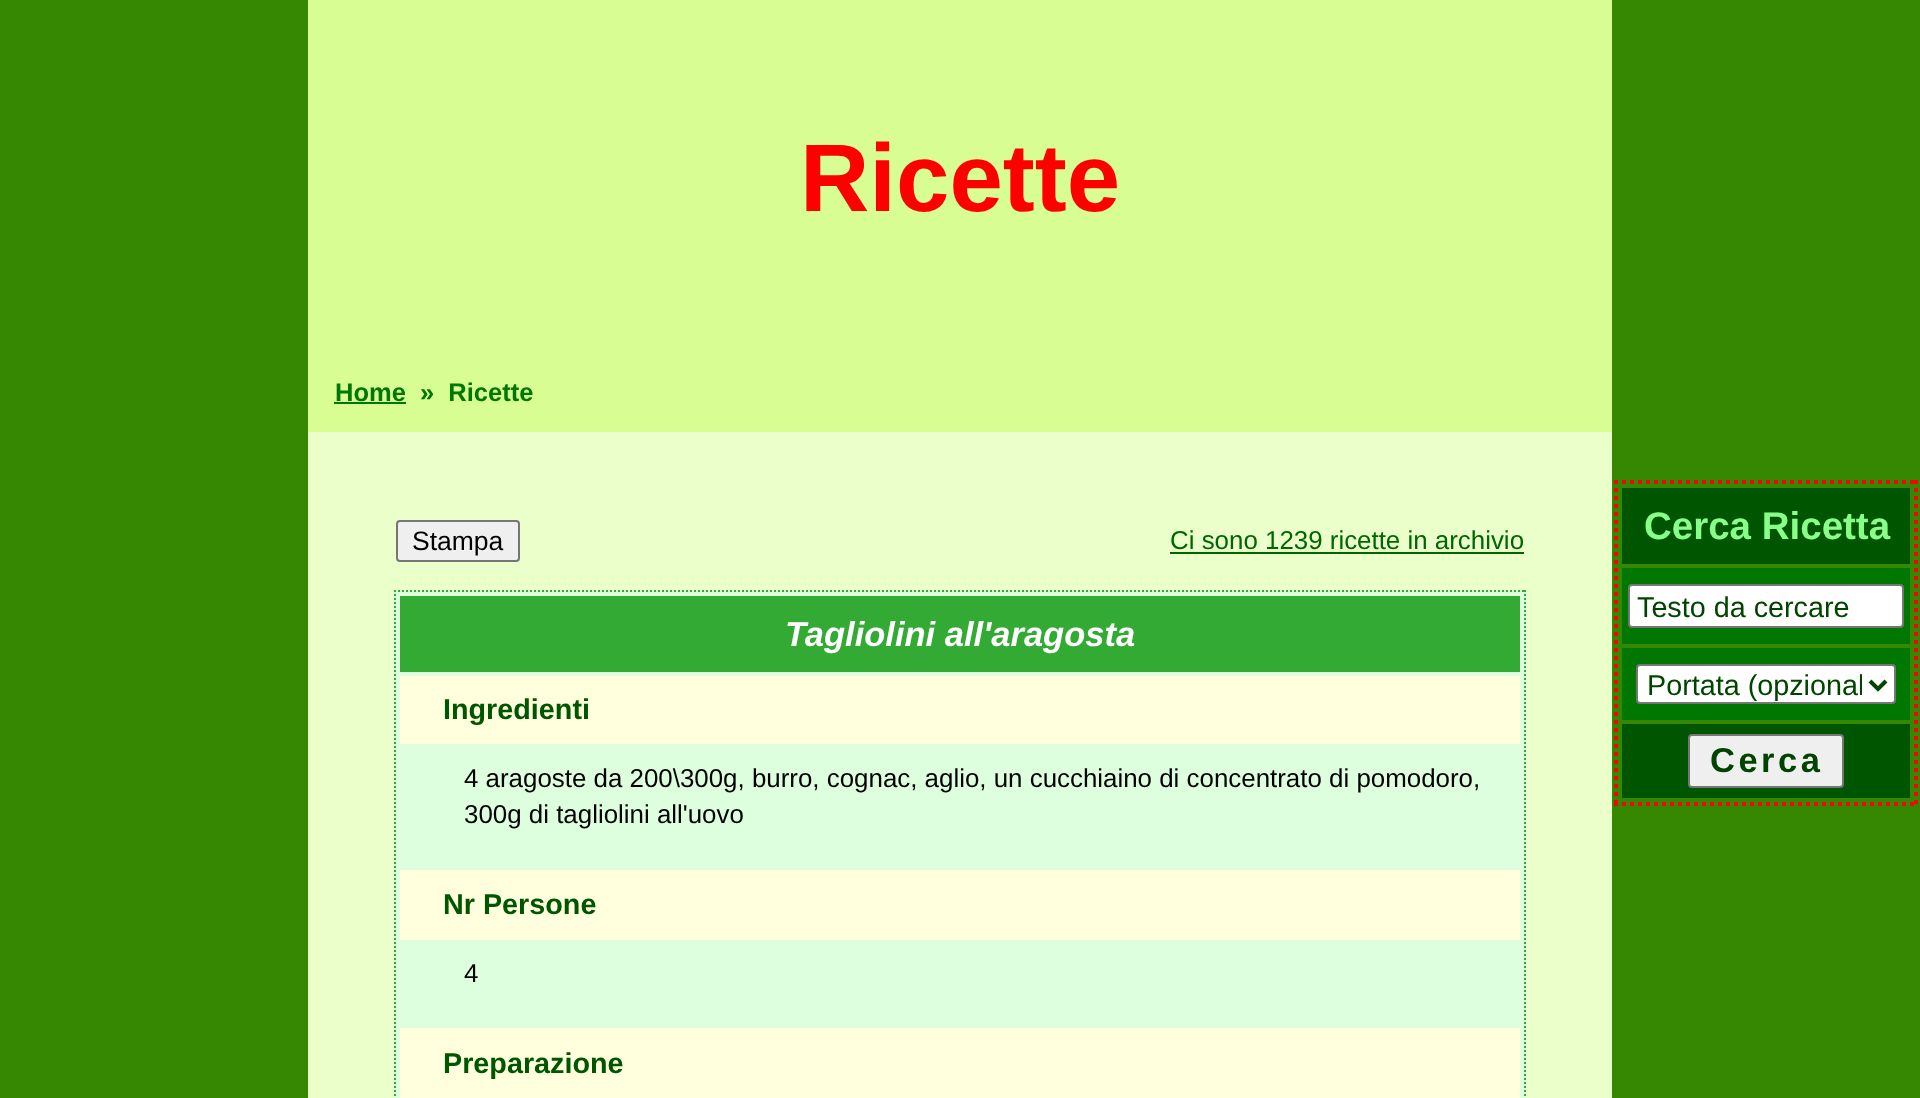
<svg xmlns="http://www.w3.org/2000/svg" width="1920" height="1098">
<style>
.a{font:bold 96px Liberation Sans;fill:#f00}
.b{font:bold 25.5px Liberation Sans;fill:#070}
.c{font:26.5px Liberation Sans;fill:#000}
.d{font:25.9px Liberation Sans;fill:#060}
.e{font:italic bold 34.5px Liberation Sans;fill:#fff}
.f{font:bold 28.75px Liberation Sans;fill:#050}
.g{font:25.9px Liberation Sans;fill:#000}
.h{font:bold 38.5px Liberation Sans;fill:#8f8}
.i{font:28.75px Liberation Sans;fill:#040}
.j{font:bold 34.5px Liberation Sans;letter-spacing:3.5px;fill:#040}
</style>
<defs>
<clipPath id="clip1"><path d="M1646 666h216v36H1646z"/></clipPath>
</defs>
<rect width="100%" height="100%" fill="#d8fd93"/>
<path fill="#368701" d="M0 0h308v1098H0z"/>
<path fill="#070" d="M334 402h72v2H334z"/>
<path fill="#368701" d="M1612 0h308v1098H1612z"/>
<path fill="#eaffca" d="M308 432h1304v666H308z"/>
<rect fill="#efefef" stroke="#767676" stroke-width="2" x="397" y="521" width="122" height="40" rx="3"/>
<path fill="#060" d="M1170 552h354v2H1170z"/>
<path fill="#dfd" d="M394 590h1132v508H394z"/>
<path fill="none" stroke="#3a3" stroke-width="2" stroke-dasharray="2 2" d="M394 591h1132"/>
<path fill="none" stroke="#3a3" stroke-width="2" stroke-dasharray="2 2" d="M1525 590v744"/>
<path fill="none" stroke="#3a3" stroke-width="2" stroke-dasharray="2 2" d="M395 590v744"/>
<path fill="#3a3" d="M400 596h1120v76H400z"/>
<path fill="#ffd" d="M400 676h1120v68H400z"/>
<path fill="#ffd" d="M400 870h1120v70H400z"/>
<path fill="#ffd" d="M400 1028h1120v70H400z"/>
<path fill="none" stroke="#f00" stroke-width="4" stroke-dasharray="4 4" d="M1614 482h304"/>
<path fill="none" stroke="#f00" stroke-width="4" stroke-dasharray="4 4" d="M1916 480v326"/>
<path fill="none" stroke="#f00" stroke-width="4" stroke-dasharray="4 4" d="M1614 804h304"/>
<path fill="none" stroke="#f00" stroke-width="4" stroke-dasharray="4 4" d="M1616 480v326"/>
<path fill="#050" d="M1622 488h288v76H1622z"/>
<path fill="#070" d="M1622 568h288v76H1622z"/>
<rect fill="#fff" stroke="#767676" stroke-width="2" x="1629" y="585" width="274" height="42" rx="3"/>
<path fill="#070" d="M1622 648h288v72H1622z"/>
<rect fill="#fff" stroke="#767676" stroke-width="2" x="1637" y="665" width="258" height="38" rx="3"/>
<path fill="none" stroke="#040" stroke-width="4" d="M1870 681l8 8l8-8"/>
<path fill="#050" d="M1622 724h288v74H1622z"/>
<rect fill="#efefef" stroke="#767676" stroke-width="2" x="1689" y="735" width="154" height="52" rx="3"/>
<text class="a" x="800" y="211">Ricette</text>
<text class="b" x="335" y="401">Home</text>
<text class="b" xml:space="preserve" x="420" y="401">»  Ricette</text>
<text class="c" x="412" y="550">Stampa</text>
<text class="d" x="1170" y="549">Ci sono 1239 ricette in archivio</text>
<text class="e" x="785" y="646">Tagliolini all'aragosta</text>
<text class="f" x="443" y="719">Ingredienti</text>
<text class="g" x="464" y="787">4 aragoste da 200\300g, burro, cognac, aglio, un cucchiaino di concentrato di pomodoro,</text>
<text class="g" x="464" y="823">300g di tagliolini all'uovo</text>
<text class="f" x="443" y="914">Nr Persone</text>
<text class="g" x="464" y="982">4</text>
<text class="f" x="443" y="1073">Preparazione</text>
<text class="h" x="1644" y="539">Cerca Ricetta</text>
<text class="i" x="1637" y="617">Testo da cercare</text>
<g clip-path="url(#clip1)">
<text class="i" x="1647" y="695">Portata (opzional</text>
</g>
<text class="j" x="1710" y="772">Cerca</text>
</svg>
